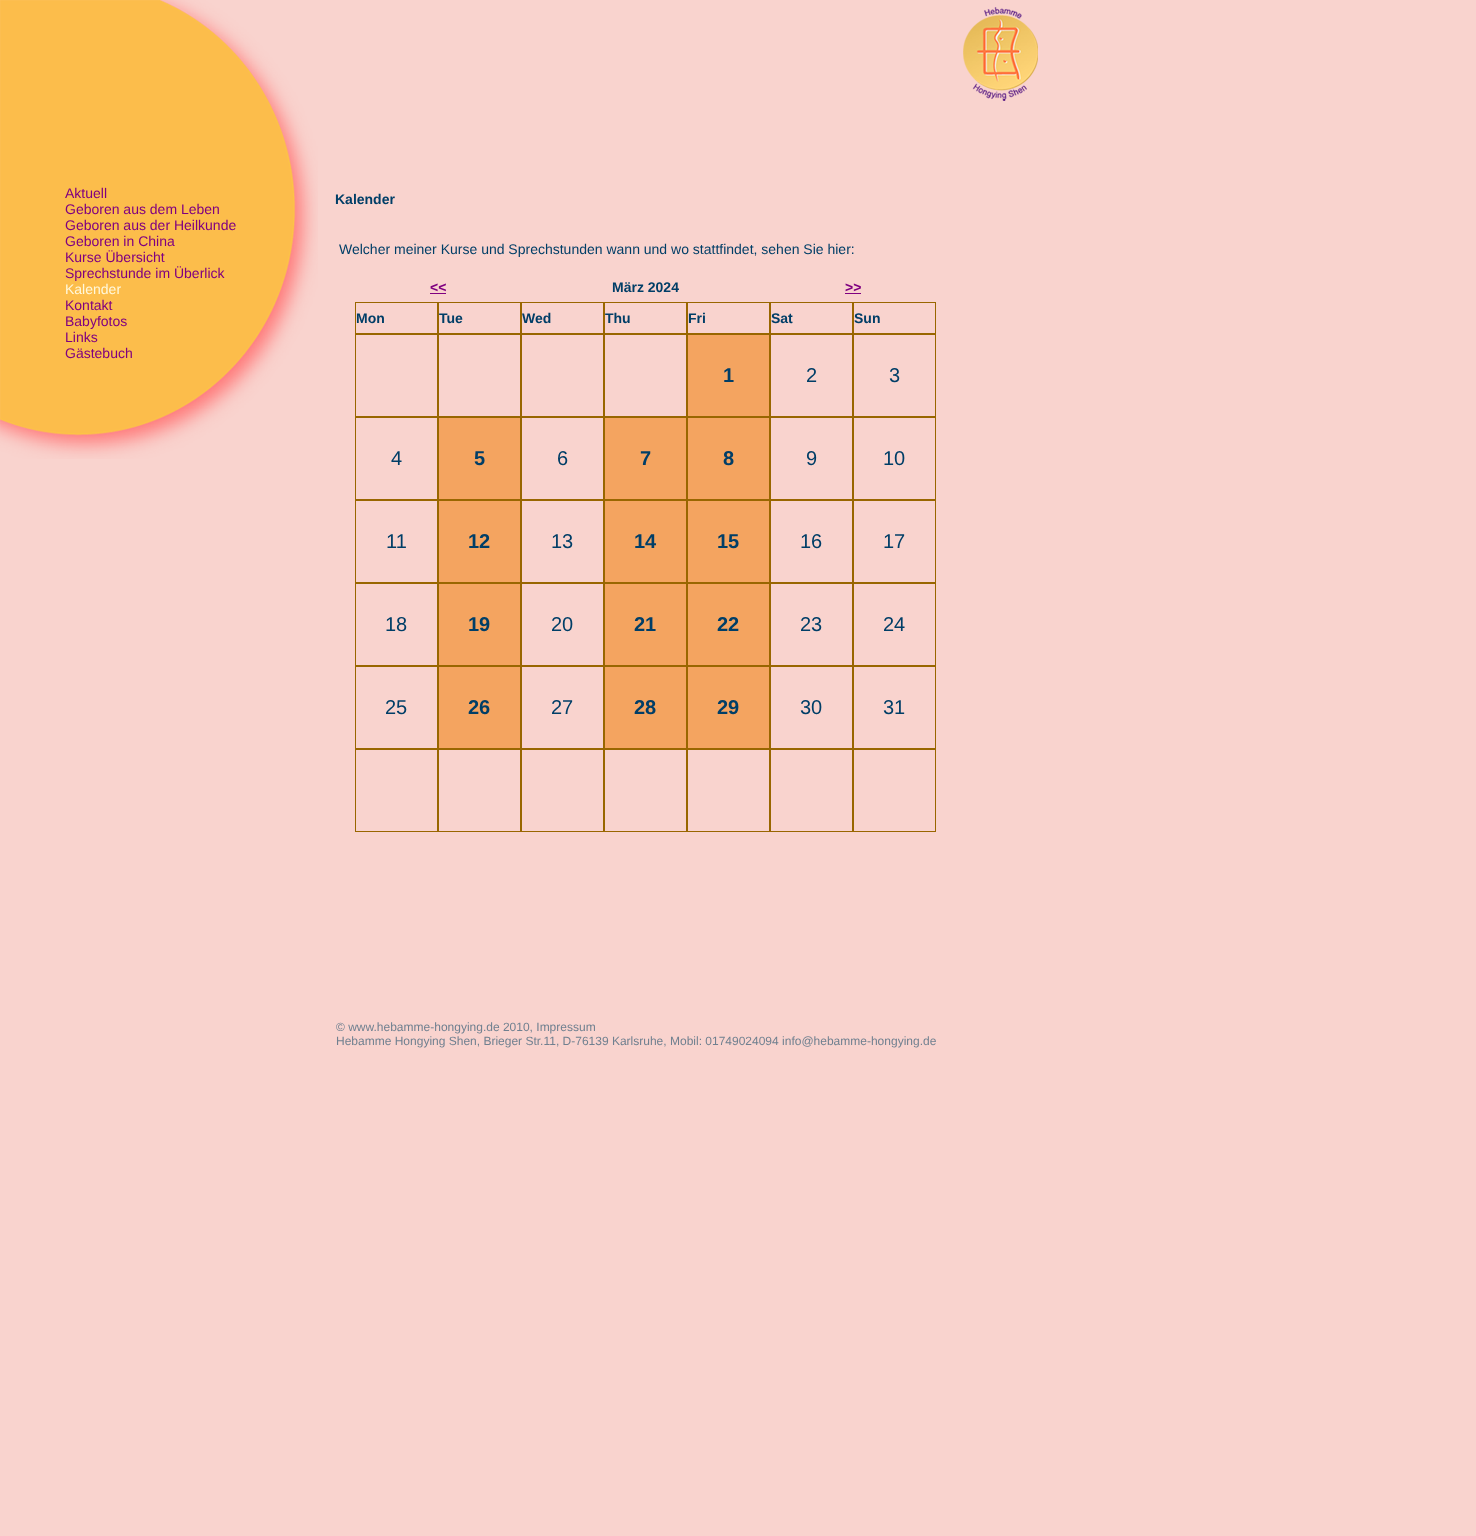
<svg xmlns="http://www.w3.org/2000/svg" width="1476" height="1536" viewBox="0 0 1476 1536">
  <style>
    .t1 { font: 14px Liberation Sans; fill: #800080; }
    .t2 { font: 14px Liberation Sans; fill: #fff8dc; }
    .t3 { font: bold 14px Liberation Sans; fill: #003e67; }
    .t4 { font: 14px Liberation Sans; fill: #003e67; }
    .t5 { font: bold 14px Liberation Sans; fill: #800080; }
    .t6 { font: bold 20px Liberation Sans; fill: #003e67; }
    .t7 { font: 20px Liberation Sans; fill: #003e67; }
    .t8 { font: 12px Liberation Sans; fill: #708090; }
  </style>
  <rect width="100%" height="100%" fill="#f9d3ce"/>
  <image x="0" y="0" width="318" height="459" href="images/1.png"/>
  <text x="65" y="198" class="t1">Aktuell</text>
  <text x="65" y="214" class="t1">Geboren aus dem Leben</text>
  <text x="65" y="230" class="t1">Geboren aus der Heilkunde</text>
  <text x="65" y="246" class="t1">Geboren in China</text>
  <text x="65" y="262" class="t1">Kurse Übersicht</text>
  <text x="65" y="278" class="t1">Sprechstunde im Überlick</text>
  <text x="65" y="294" class="t2">Kalender</text>
  <text x="65" y="310" class="t1">Kontakt</text>
  <text x="65" y="326" class="t1">Babyfotos</text>
  <text x="65" y="342" class="t1">Links</text>
  <text x="65" y="358" class="t1">Gästebuch</text>
  <image x="963" y="7" width="75" height="94" href="images/2.png"/>
  <text x="335" y="204" class="t3">Kalender</text>
  <text x="339" y="254" class="t4">Welcher meiner Kurse und Sprechstunden wann und wo stattfindet, sehen Sie hier:</text>
  <text x="430" y="292" class="t5">&lt;&lt;</text>
  <rect x="430" y="293" width="16" height="1" fill="#800080"/>
  <text x="612" y="292" class="t3">März 2024</text>
  <text x="845" y="292" class="t5">&gt;&gt;</text>
  <rect x="845" y="293" width="16" height="1" fill="#800080"/>
  <rect x="355.5" y="302.5" width="82" height="31" fill="none" stroke="#960"/>
  <text x="356" y="323" class="t3">Mon</text>
  <rect x="438.5" y="302.5" width="82" height="31" fill="none" stroke="#960"/>
  <text x="439" y="323" class="t3">Tue</text>
  <rect x="521.5" y="302.5" width="82" height="31" fill="none" stroke="#960"/>
  <text x="522" y="323" class="t3">Wed</text>
  <rect x="604.5" y="302.5" width="82" height="31" fill="none" stroke="#960"/>
  <text x="605" y="323" class="t3">Thu</text>
  <rect x="687.5" y="302.5" width="82" height="31" fill="none" stroke="#960"/>
  <text x="688" y="323" class="t3">Fri</text>
  <rect x="770.5" y="302.5" width="82" height="31" fill="none" stroke="#960"/>
  <text x="771" y="323" class="t3">Sat</text>
  <rect x="853.5" y="302.5" width="82" height="31" fill="none" stroke="#960"/>
  <text x="854" y="323" class="t3">Sun</text>
  <rect x="355.5" y="334.5" width="82" height="82" fill="none" stroke="#960"/>
  <rect x="438.5" y="334.5" width="82" height="82" fill="none" stroke="#960"/>
  <rect x="521.5" y="334.5" width="82" height="82" fill="none" stroke="#960"/>
  <rect x="604.5" y="334.5" width="82" height="82" fill="none" stroke="#960"/>
  <rect x="687.5" y="334.5" width="82" height="82" fill="#f4a460" stroke="#960"/>
  <text x="723" y="382" class="t6">1</text>
  <rect x="770.5" y="334.5" width="82" height="82" fill="none" stroke="#960"/>
  <text x="806" y="382" class="t7">2</text>
  <rect x="853.5" y="334.5" width="82" height="82" fill="none" stroke="#960"/>
  <text x="889" y="382" class="t7">3</text>
  <rect x="355.5" y="417.5" width="82" height="82" fill="none" stroke="#960"/>
  <text x="391" y="465" class="t7">4</text>
  <rect x="438.5" y="417.5" width="82" height="82" fill="#f4a460" stroke="#960"/>
  <text x="474" y="465" class="t6">5</text>
  <rect x="521.5" y="417.5" width="82" height="82" fill="none" stroke="#960"/>
  <text x="557" y="465" class="t7">6</text>
  <rect x="604.5" y="417.5" width="82" height="82" fill="#f4a460" stroke="#960"/>
  <text x="640" y="465" class="t6">7</text>
  <rect x="687.5" y="417.5" width="82" height="82" fill="#f4a460" stroke="#960"/>
  <text x="723" y="465" class="t6">8</text>
  <rect x="770.5" y="417.5" width="82" height="82" fill="none" stroke="#960"/>
  <text x="806" y="465" class="t7">9</text>
  <rect x="853.5" y="417.5" width="82" height="82" fill="none" stroke="#960"/>
  <text x="883" y="465" class="t7">10</text>
  <rect x="355.5" y="500.5" width="82" height="82" fill="none" stroke="#960"/>
  <text x="386" y="548" class="t7">11</text>
  <rect x="438.5" y="500.5" width="82" height="82" fill="#f4a460" stroke="#960"/>
  <text x="468" y="548" class="t6">12</text>
  <rect x="521.5" y="500.5" width="82" height="82" fill="none" stroke="#960"/>
  <text x="551" y="548" class="t7">13</text>
  <rect x="604.5" y="500.5" width="82" height="82" fill="#f4a460" stroke="#960"/>
  <text x="634" y="548" class="t6">14</text>
  <rect x="687.5" y="500.5" width="82" height="82" fill="#f4a460" stroke="#960"/>
  <text x="717" y="548" class="t6">15</text>
  <rect x="770.5" y="500.5" width="82" height="82" fill="none" stroke="#960"/>
  <text x="800" y="548" class="t7">16</text>
  <rect x="853.5" y="500.5" width="82" height="82" fill="none" stroke="#960"/>
  <text x="883" y="548" class="t7">17</text>
  <rect x="355.5" y="583.5" width="82" height="82" fill="none" stroke="#960"/>
  <text x="385" y="631" class="t7">18</text>
  <rect x="438.5" y="583.5" width="82" height="82" fill="#f4a460" stroke="#960"/>
  <text x="468" y="631" class="t6">19</text>
  <rect x="521.5" y="583.5" width="82" height="82" fill="none" stroke="#960"/>
  <text x="551" y="631" class="t7">20</text>
  <rect x="604.5" y="583.5" width="82" height="82" fill="#f4a460" stroke="#960"/>
  <text x="634" y="631" class="t6">21</text>
  <rect x="687.5" y="583.5" width="82" height="82" fill="#f4a460" stroke="#960"/>
  <text x="717" y="631" class="t6">22</text>
  <rect x="770.5" y="583.5" width="82" height="82" fill="none" stroke="#960"/>
  <text x="800" y="631" class="t7">23</text>
  <rect x="853.5" y="583.5" width="82" height="82" fill="none" stroke="#960"/>
  <text x="883" y="631" class="t7">24</text>
  <rect x="355.5" y="666.5" width="82" height="82" fill="none" stroke="#960"/>
  <text x="385" y="714" class="t7">25</text>
  <rect x="438.5" y="666.5" width="82" height="82" fill="#f4a460" stroke="#960"/>
  <text x="468" y="714" class="t6">26</text>
  <rect x="521.5" y="666.5" width="82" height="82" fill="none" stroke="#960"/>
  <text x="551" y="714" class="t7">27</text>
  <rect x="604.5" y="666.5" width="82" height="82" fill="#f4a460" stroke="#960"/>
  <text x="634" y="714" class="t6">28</text>
  <rect x="687.5" y="666.5" width="82" height="82" fill="#f4a460" stroke="#960"/>
  <text x="717" y="714" class="t6">29</text>
  <rect x="770.5" y="666.5" width="82" height="82" fill="none" stroke="#960"/>
  <text x="800" y="714" class="t7">30</text>
  <rect x="853.5" y="666.5" width="82" height="82" fill="none" stroke="#960"/>
  <text x="883" y="714" class="t7">31</text>
  <rect x="355.5" y="749.5" width="82" height="82" fill="none" stroke="#960"/>
  <rect x="438.5" y="749.5" width="82" height="82" fill="none" stroke="#960"/>
  <rect x="521.5" y="749.5" width="82" height="82" fill="none" stroke="#960"/>
  <rect x="604.5" y="749.5" width="82" height="82" fill="none" stroke="#960"/>
  <rect x="687.5" y="749.5" width="82" height="82" fill="none" stroke="#960"/>
  <rect x="770.5" y="749.5" width="82" height="82" fill="none" stroke="#960"/>
  <rect x="853.5" y="749.5" width="82" height="82" fill="none" stroke="#960"/>
  <text x="336" y="1031" class="t8">© www.hebamme-hongying.de 2010, Impressum</text>
  <text x="336" y="1045" class="t8">Hebamme Hongying Shen, Brieger Str.11, D-76139 Karlsruhe, Mobil: 01749024094 info@hebamme-hongying.de</text>
</svg>
